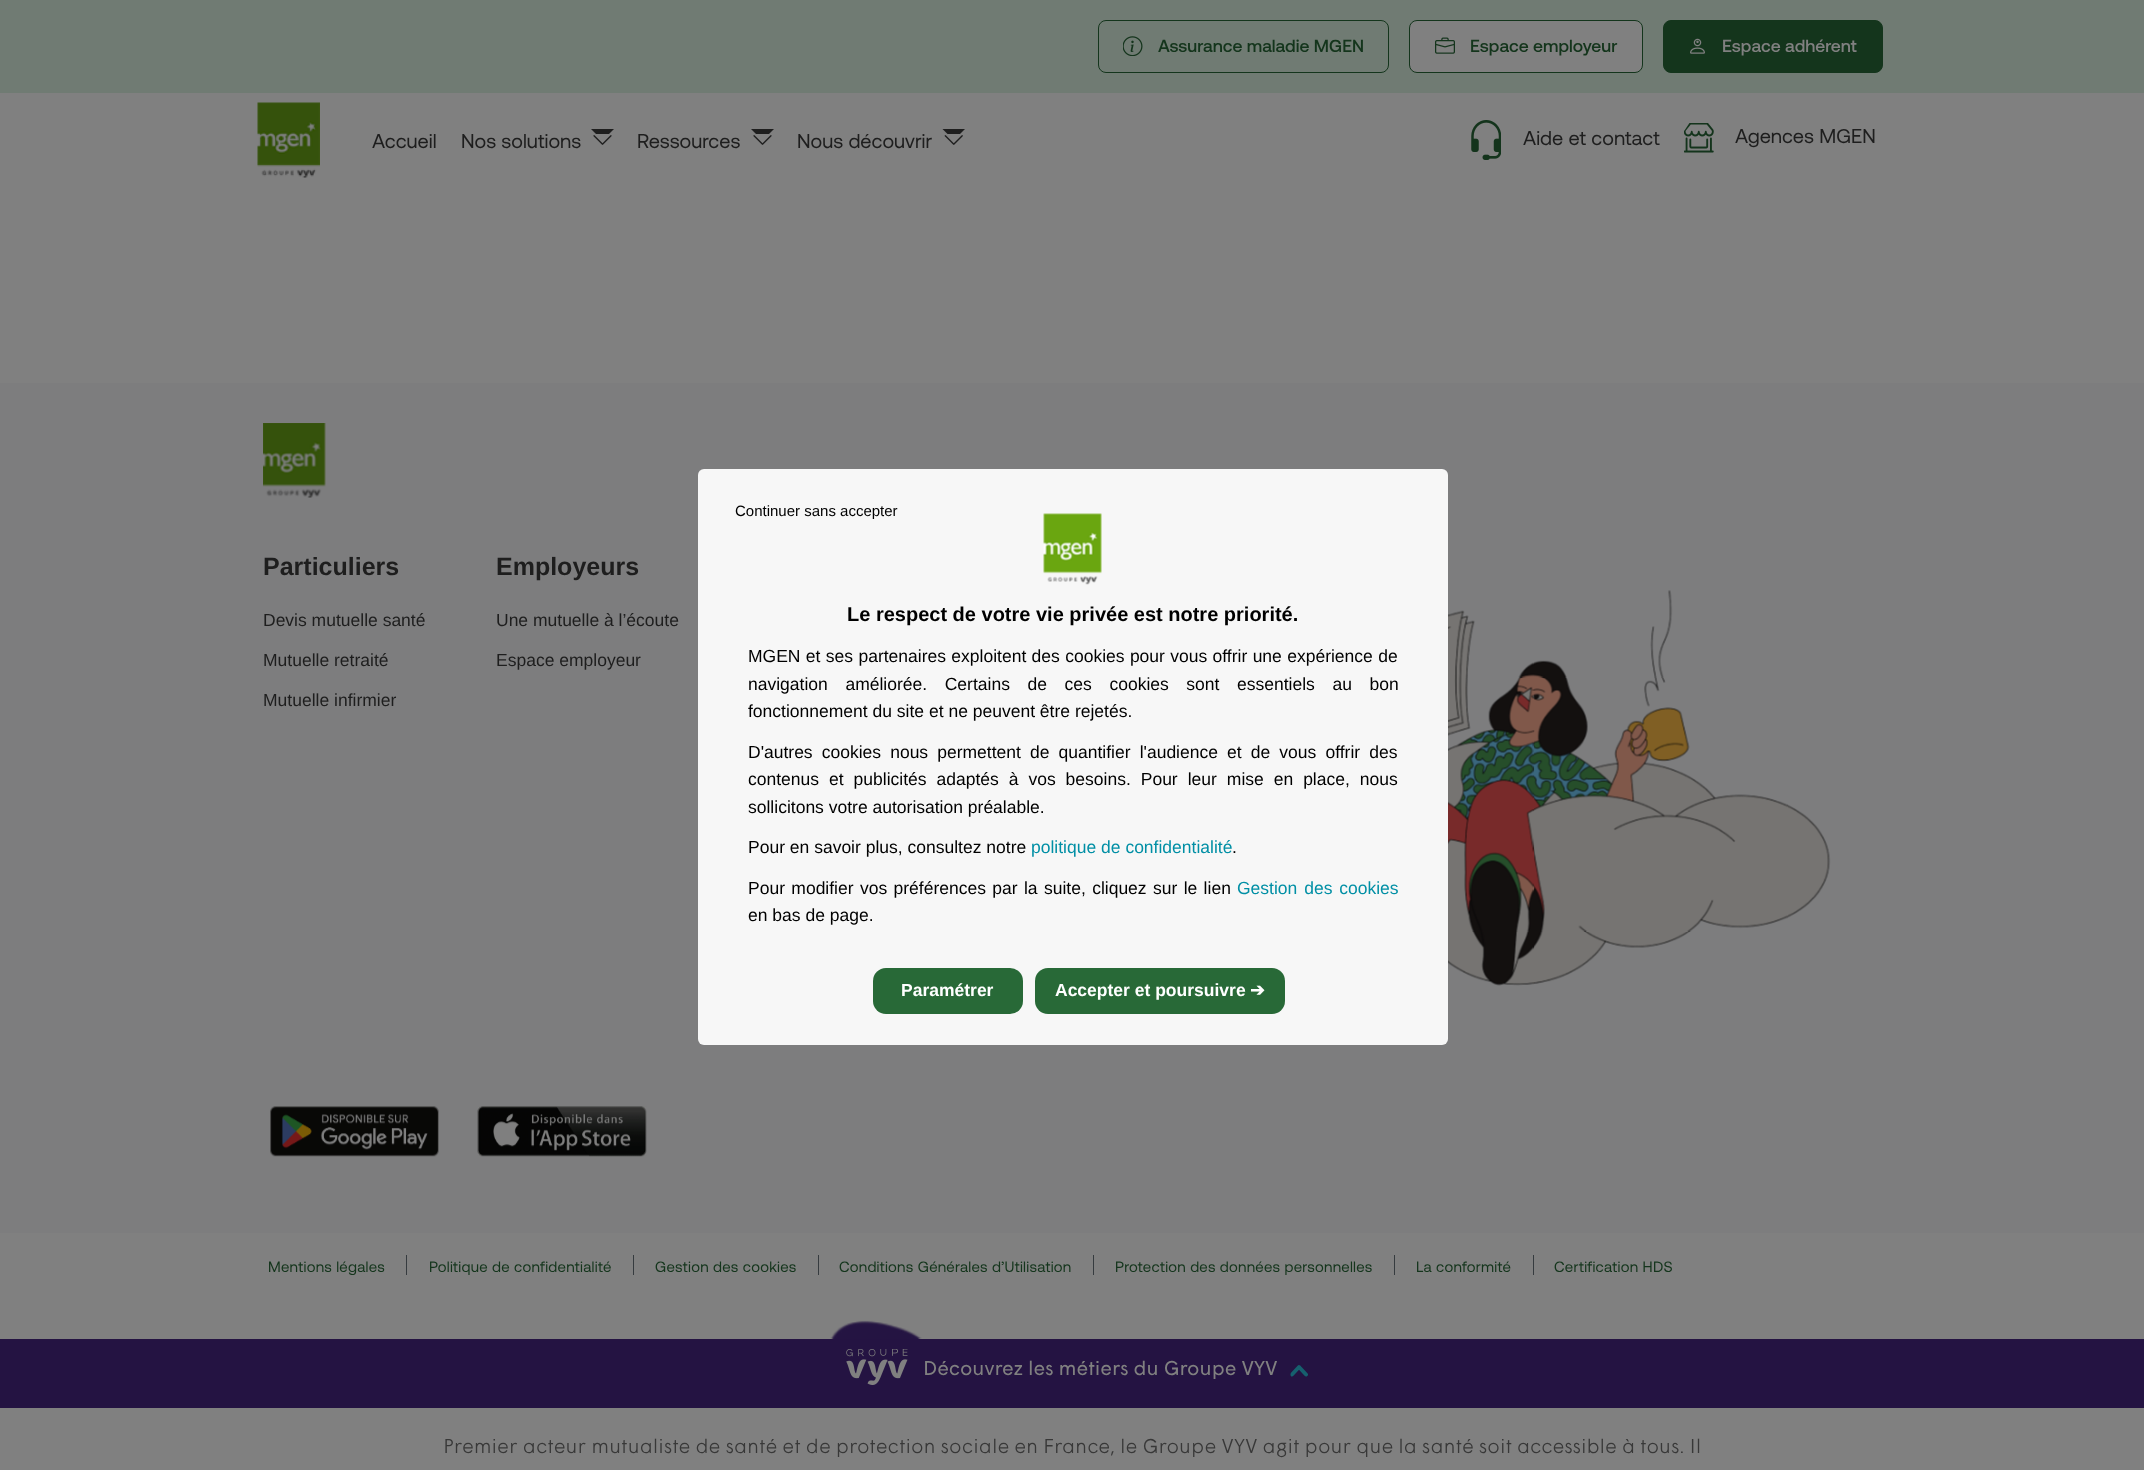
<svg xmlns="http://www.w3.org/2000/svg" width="2144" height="1470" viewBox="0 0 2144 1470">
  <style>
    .t1 { font: 500 17.5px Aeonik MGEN; fill: #14351c; }
    .t2 { font: 500 17.5px Aeonik MGEN; fill: #808080; }
    .t3 { font: 20px Aeonik MGEN; fill: #1e1e1e; }
    .t4 { font: bold 25px Liberation Sans; fill: #1e1e1e; }
    .t5 { font: 17.5px Liberation Sans; fill: #1e1e1e; }
    .t6 { font: 15px Aeonik MGEN; letter-spacing: 0.25px; fill: #14351c; }
    .t7 { font: 15px Liberation Sans; fill: #000; }
    .t8 { font: bold 17.5px Liberation Sans; fill: #fff; }
    .t9 { font: bold 17.5px DejaVu Sans; fill: #fff; }
    .t10 { font: bold 20px Liberation Sans; fill: #000; }
    .t11 { font: 17.5px Liberation Sans; fill: #000; }
    .t12 { font: 17.5px Liberation Sans; fill: #008fa5; }
    .t13 { font: 20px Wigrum; fill: #808080; }
    .t14 { font: 300 20px Wigrum; fill: #383838; }
  </style>
  <defs>
    <clipPath id="clip1"><path d="M1290.5 1379V1361.5H1308V1379Z"/></clipPath>
  </defs>
  <rect width="100%" height="100%" fill="#808080"/>
  <rect x="0" y="0" width="2144" height="93" fill="#707b73"/>
  <rect x="1098.5" y="20.5" width="290" height="52" rx="7.5" fill="none" stroke="#14351c"/>
  <image x="1123" y="36" width="20" height="20" href="images/1.png"/>
  <text x="1158" y="52" class="t1">Assurance maladie MGEN</text>
  <rect x="1409.5" y="20.5" width="233" height="52" rx="7.5" fill="#808080" stroke="#14351c"/>
  <image x="1435" y="37" width="20" height="17" href="images/2.png"/>
  <text x="1470" y="52" class="t1">Espace employeur</text>
  <rect x="1663.5" y="20.5" width="219" height="52" rx="7.5" fill="#14351c" stroke="#14351c"/>
  <image x="1690" y="38" width="15" height="16" href="images/3.png"/>
  <text x="1722" y="52" class="t2">Espace adhérent</text>
  <image x="257" y="102" width="63" height="76" href="images/4.png"/>
  <text x="372" y="148" class="t3">Accueil</text>
  <text x="461" y="148" class="t3">Nos solutions</text>
  <image x="593" y="135" width="19" height="10" href="images/5.png"/>
  <path d="M591 129H614L609 134H596Z" fill="#1e1e1e"/>
  <text x="637" y="148" class="t3">Ressources</text>
  <image x="753" y="135" width="19" height="10" href="images/5.png"/>
  <path d="M751 129H774L769 134H756Z" fill="#1e1e1e"/>
  <text x="797" y="148" class="t3">Nous découvrir</text>
  <image x="944" y="135" width="19" height="10" href="images/6.png"/>
  <path d="M942.5 129H965L960 134H947.5Z" fill="#1e1e1e"/>
  <image x="1471" y="120" width="30" height="40" href="images/7.png"/>
  <text x="1523" y="145" class="t3">Aide et contact</text>
  <image x="1684" y="123" width="30" height="30" href="images/8.png"/>
  <text x="1735" y="143" class="t3">Agences MGEN</text>
  <rect x="0" y="383" width="2144" height="850" fill="#7d7d7e"/>
  <image x="263" y="423" width="63" height="75" href="images/9.png"/>
  <text x="263" y="575" class="t4">Particuliers</text>
  <text x="263" y="626" class="t5">Devis mutuelle santé</text>
  <text x="263" y="666" class="t5">Mutuelle retraité</text>
  <text x="263" y="706" class="t5">Mutuelle infirmier</text>
  <text x="496" y="575" class="t4">Employeurs</text>
  <text x="496" y="626" class="t5">Une mutuelle à l’écoute</text>
  <text x="496" y="666" class="t5">Espace employeur</text>
  <image x="1448" y="590" width="383" height="396" href="images/10.png"/>
  <image x="270" y="1106" width="169" height="51" href="images/11.png"/>
  <image x="477" y="1106" width="170" height="51" href="images/12.png"/>
  <text x="268" y="1272" class="t6">Mentions légales</text>
  <rect x="406" y="1255" width="1" height="20" fill="#363b3f"/>
  <text x="429" y="1272" class="t6">Politique de confidentialité</text>
  <rect x="633" y="1255" width="1" height="20" fill="#363b3f"/>
  <text x="655" y="1272" class="t6">Gestion des cookies</text>
  <rect x="818" y="1255" width="1" height="20" fill="#363b3f"/>
  <text x="839" y="1272" class="t6">Conditions Générales d’Utilisation</text>
  <rect x="1093" y="1255" width="1" height="20" fill="#363b3f"/>
  <text x="1115" y="1272" class="t6">Protection des données personnelles</text>
  <rect x="1394" y="1255" width="1" height="20" fill="#363b3f"/>
  <text x="1416" y="1272" class="t6">La conformité</text>
  <rect x="1533" y="1255" width="1" height="20" fill="#363b3f"/>
  <text x="1554" y="1272" class="t6">Certification HDS</text>
  <rect x="698" y="469" width="750" height="576" rx="6" fill="#f7f7f7"/>
  <text x="735" y="516" class="t7">Continuer sans accepter</text>
  <rect x="873" y="968" width="150" height="46" rx="13" fill="#286937"/>
  <text x="901" y="996" class="t8">Paramétrer</text>
  <rect x="1035" y="968" width="250" height="46" rx="13" fill="#286937"/>
  <text x="1055" y="996" class="t8">Accepter et poursuivre</text>
  <text x="1250" y="996" class="t9">➔</text>
  <image x="1043" y="513" width="59" height="72" href="images/13.png"/>
  <text x="847" y="621" class="t10">Le respect de votre vie privée est notre priorité.</text>
  <text x="748" y="662" word-spacing="0.5" class="t11">MGEN et ses partenaires exploitent des cookies pour vous offrir une expérience de</text>
  <text x="748" y="690" word-spacing="12.75" class="t11">navigation améliorée. Certains de ces cookies sont essentiels au bon</text>
  <text x="748" y="717" class="t11">fonctionnement du site et ne peuvent être rejetés.</text>
  <text x="748" y="758" word-spacing="4.25" class="t11">D'autres cookies nous permettent de quantifier l'audience et de vous offrir des</text>
  <text x="748" y="785" word-spacing="5.1" class="t11">contenus et publicités adaptés à vos besoins. Pour leur mise en place, nous</text>
  <text x="748" y="813" class="t11">sollicitons votre autorisation préalable.</text>
  <text x="748" y="853" class="t11">Pour en savoir plus, consultez notre</text>
  <text x="1031" y="853" class="t12">politique de confidentialité</text>
  <text x="1232" y="853" class="t11">.</text>
  <text x="748" y="894" word-spacing="1.5" class="t11">Pour modifier vos préférences par la suite, cliquez sur le lien</text>
  <text x="1237" y="894" word-spacing="2" class="t12">Gestion des cookies</text>
  <text x="748" y="921" class="t11">en bas de page.</text>
  <rect x="0" y="1339" width="2144" height="69" fill="#241342"/>
  <image x="830" y="1320" width="92" height="19" href="images/14.png"/>
  <image x="846" y="1349" width="62" height="36" href="images/15.png"/>
  <text x="923" y="1375" class="t13">Découvrez les métiers du Groupe VYV</text>
  <g clip-path="url(#clip1)">
    <path d="M1292 1374.5L1299 1367L1306 1374.5" fill="none" stroke="#16606e" stroke-width="3.9" stroke-linecap="round" stroke-linejoin="round"/>
  </g>
  <text x="443" y="1453" class="t14">Premier acteur mutualiste de santé et de protection sociale en France, le Groupe VYV agit pour que la santé soit accessible à tous. Il</text>
</svg>
